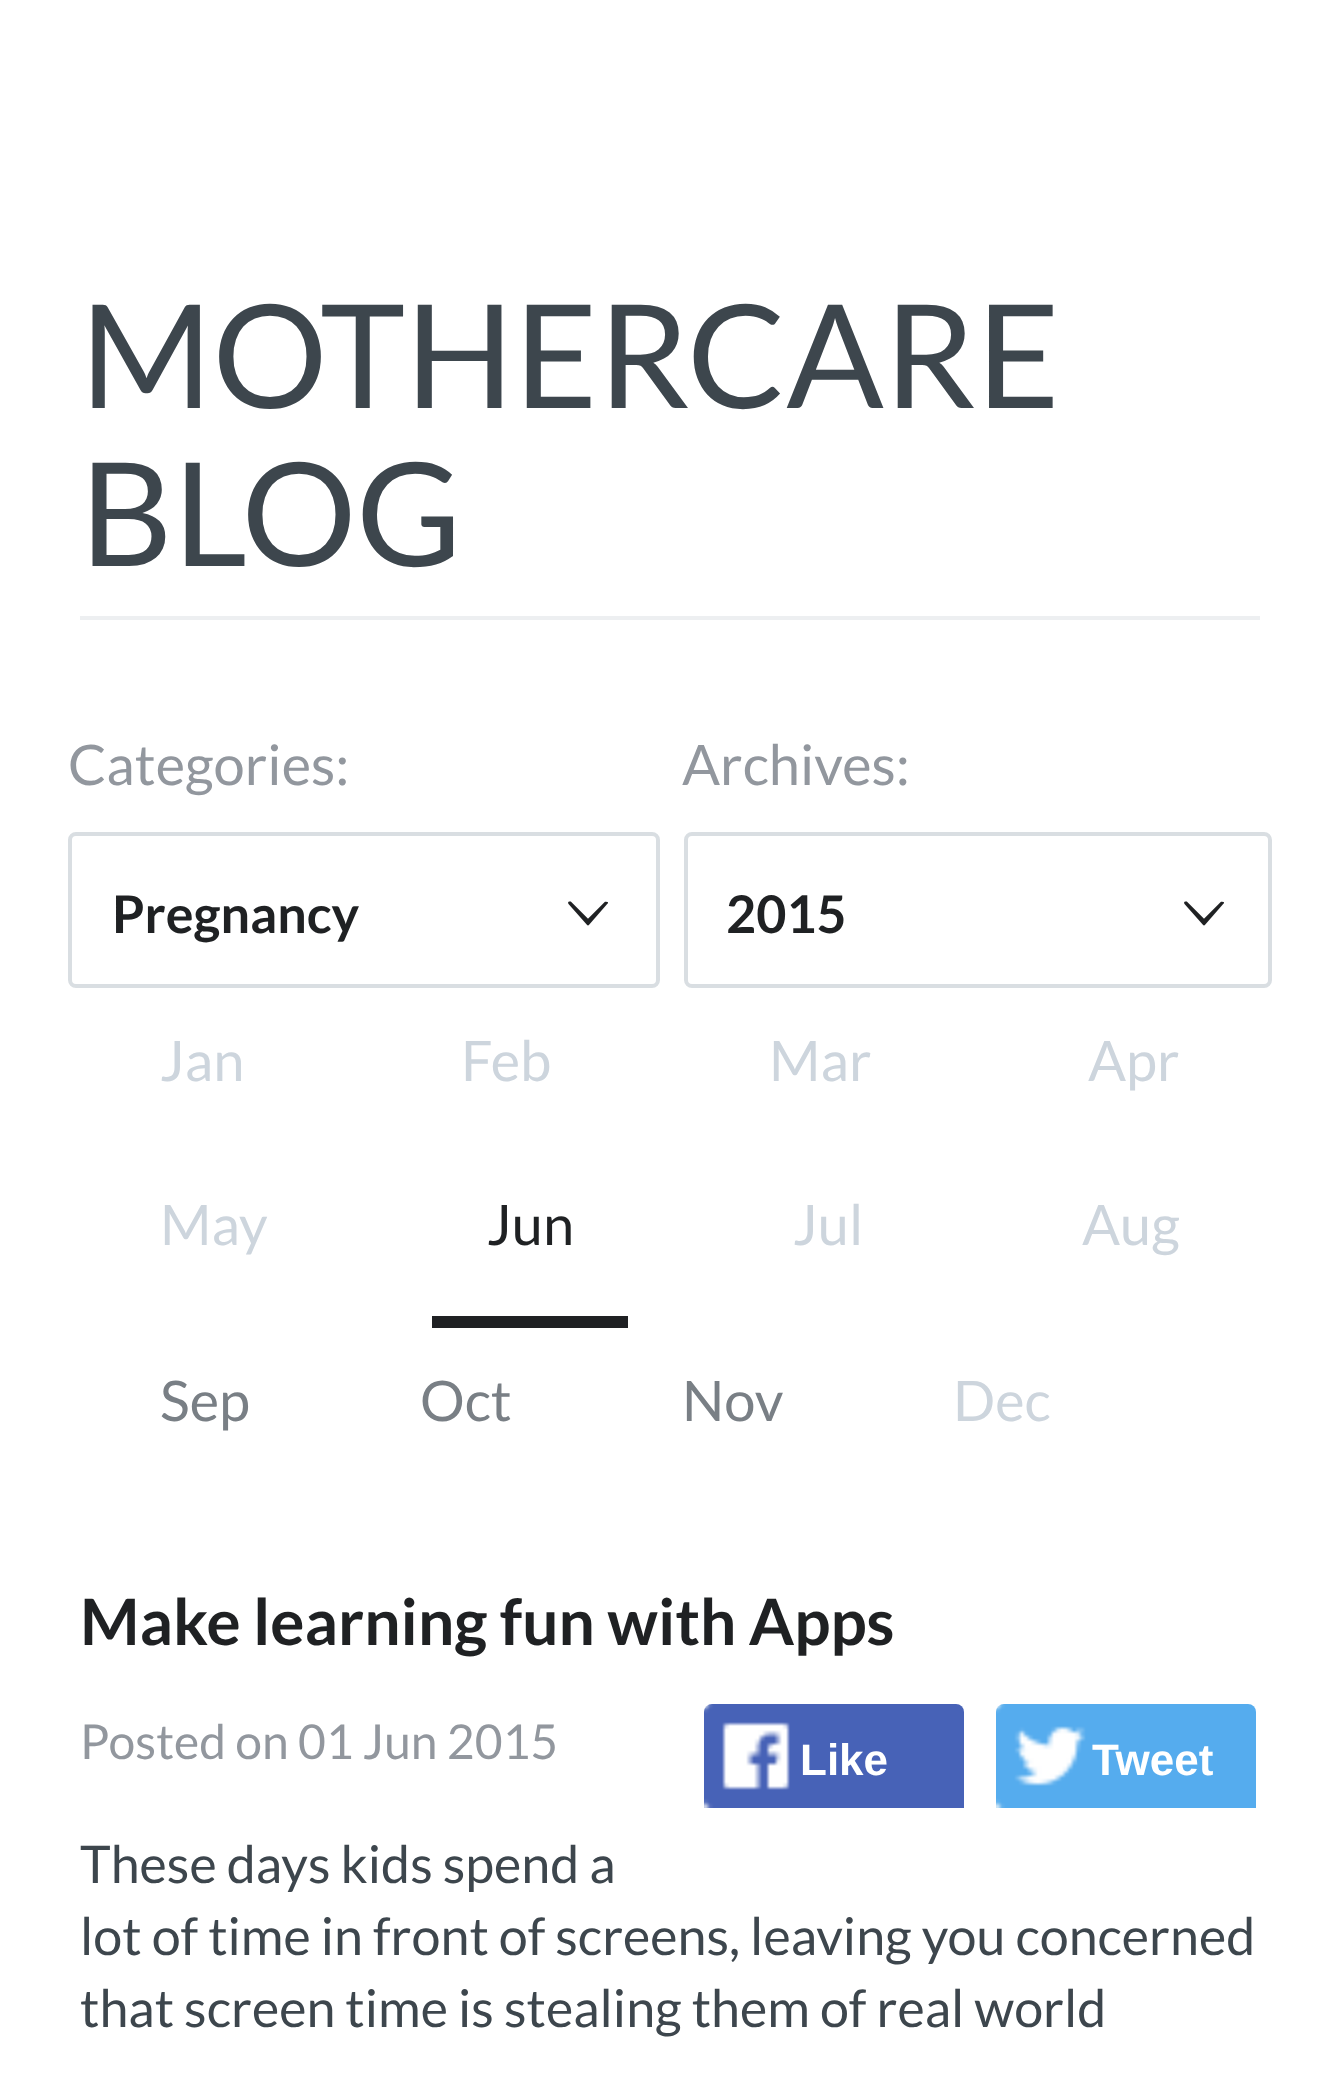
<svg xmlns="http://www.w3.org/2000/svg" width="1339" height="2083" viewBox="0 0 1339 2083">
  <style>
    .t1 { font: 144px Lato; fill: #3d464d; }
    .t2 { font: 56px Lato; fill: #92979e; }
    .t3 { font: bold 52px Lato; fill: #1f2123; }
    .t4 { font: 56px Lato; fill: #cdd5dd; }
    .t5 { font: 56px Lato; fill: #1f2123; }
    .t6 { font: 56px Lato; fill: #797f85; }
    .t7 { font: bold 64px Lato; fill: #1f2123; }
    .t8 { font: 48px Lato; fill: #92979e; }
    .t9 { font: bold 44px Liberation Sans; fill: #fff; }
    .t10 { font: 52px Lato; fill: #3d464d; }
  </style>
  <rect width="100%" height="100%" fill="#fff"/>
  <rect x="80" y="616" width="1180" height="4" fill="#edeff1"/>
  <text x="80" y="408" class="t1">MOTHERCARE</text>
  <text x="80" y="566" class="t1">BLOG</text>
  <text x="68" y="785" class="t2">Categories:</text>
  <rect x="70" y="834" width="588" height="152" rx="6" fill="none" stroke="#d9dee2" stroke-width="4"/>
  <text x="112" y="933" class="t3">Pregnancy</text>
  <image x="568" y="901" width="40" height="25" href="images/1.png"/>
  <text x="682" y="785" class="t2">Archives:</text>
  <rect x="686" y="834" width="584" height="152" rx="6" fill="none" stroke="#d9dee2" stroke-width="4"/>
  <text x="726" y="933" class="t3">2015</text>
  <image x="1184" y="901" width="40" height="25" href="images/1.png"/>
  <text x="160" y="1081" class="t4">Jan</text>
  <text x="461" y="1081" class="t4">Feb</text>
  <text x="769" y="1081" class="t4">Mar</text>
  <text x="1088" y="1081" class="t4">Apr</text>
  <text x="160" y="1245" class="t4">May</text>
  <rect x="432" y="1316" width="196" height="12" fill="#1f2123"/>
  <text x="487" y="1245" class="t5">Jun</text>
  <text x="793" y="1245" class="t4">Jul</text>
  <text x="1082" y="1245" class="t4">Aug</text>
  <text x="160" y="1421" class="t6">Sep</text>
  <text x="420" y="1421" class="t6">Oct</text>
  <text x="682" y="1421" class="t6">Nov</text>
  <text x="953" y="1421" class="t4">Dec</text>
  <text x="80" y="1645" class="t7">Make learning fun with Apps</text>
  <text x="80" y="1759" class="t8">Posted on 01 Jun 2015</text>
  <image x="704" y="1704" width="260" height="104" href="images/2.png"/>
  <text x="800" y="1775" class="t9">Like</text>
  <image x="996" y="1704" width="260" height="104" href="images/3.png"/>
  <text x="1092" y="1775" class="t9">Tweet</text>
  <text x="80" y="1883" class="t10">These days kids spend a</text>
  <text x="80" y="1955" class="t10">lot of time in front of screens, leaving you concerned</text>
  <text x="80" y="2027" class="t10">that screen time is stealing them of real world</text>
</svg>
